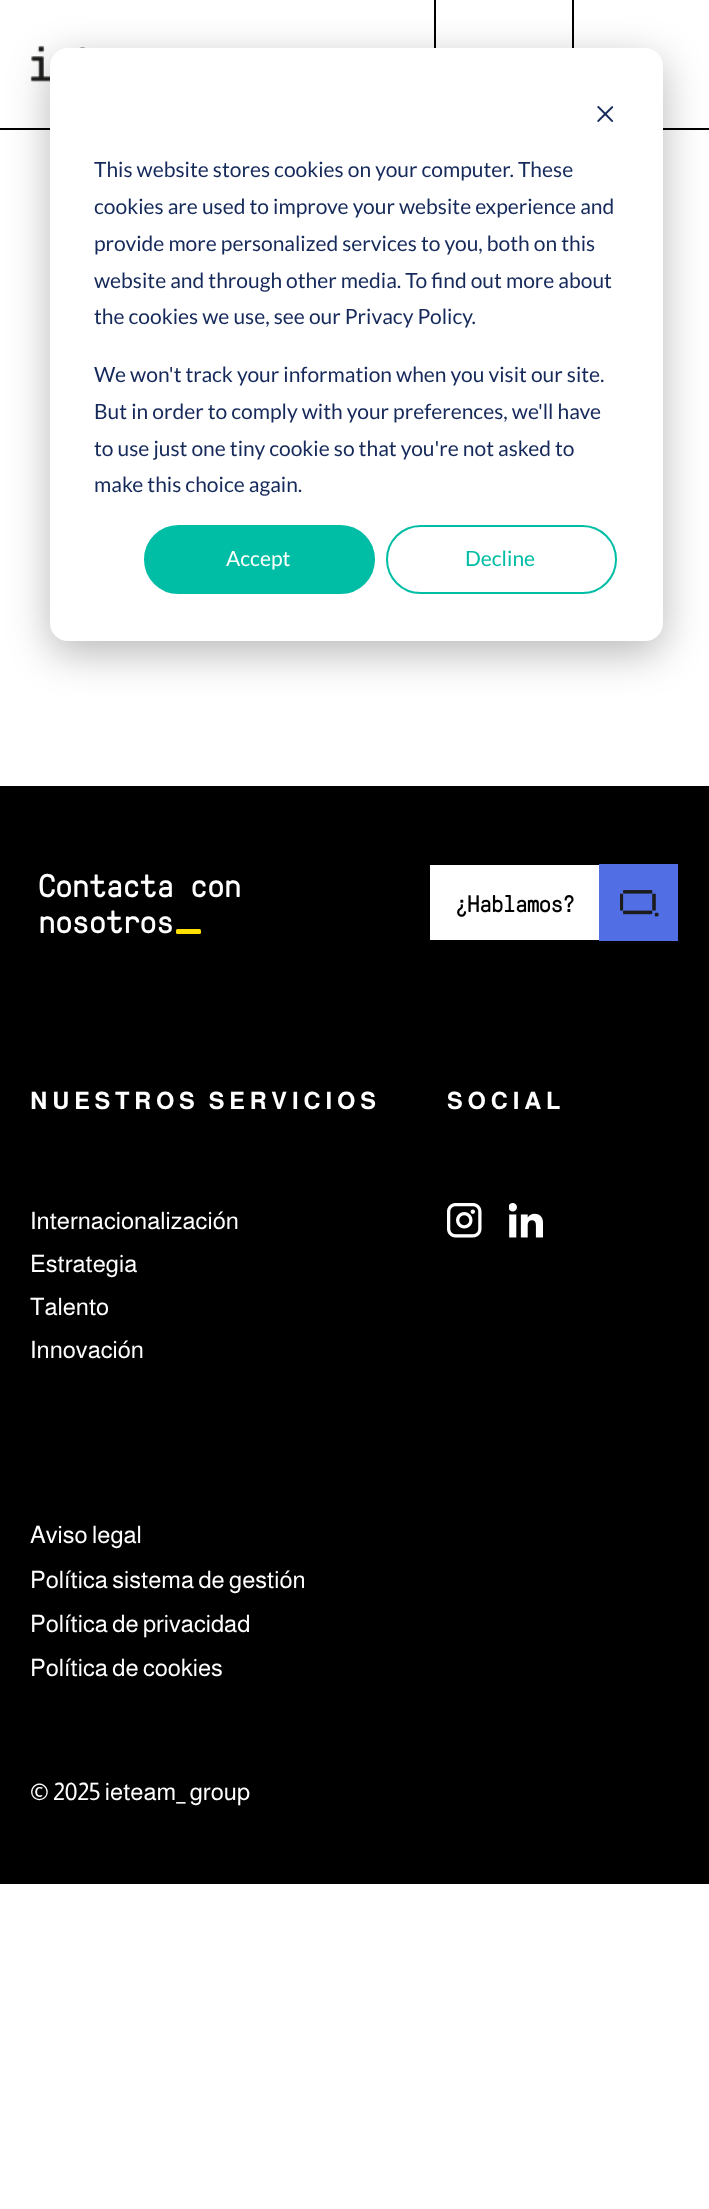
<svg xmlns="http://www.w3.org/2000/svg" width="709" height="2209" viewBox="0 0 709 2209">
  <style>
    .t1 { font: 21px Lato; fill: #15295a; }
    .t2 { font: 21px Lato; fill: #fff; }
    .t3 { font: 21px Lato; fill: #00bda5; }
    .t4 { font: 33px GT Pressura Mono; letter-spacing: -1.25px; fill: #fff; }
    .t5 { font: 24px GT Pressura Mono; letter-spacing: -1.25px; fill: #000; }
    .t6 { font: bold 24px Almarai; letter-spacing: 4.75px; fill: #fff; }
    .t7 { font: 24px Almarai; fill: #fff; }
  </style>
  <rect width="100%" height="100%" fill="#fff"/>
  <rect x="0" y="128" width="709" height="2" fill="#000"/>
  <rect x="434" y="0" width="2" height="48" fill="#000"/>
  <rect x="572" y="0" width="2" height="48" fill="#000"/>
  <image x="30" y="45" width="149" height="38" href="images/2.png"/>
  <rect x="50" y="60" width="613" height="593" rx="18" fill="#00000047" filter="blur(21px)"/>
  <rect x="50" y="48" width="613" height="593" rx="18" fill="#fff"/>
  <image x="597" y="106" width="17" height="16" href="images/1.png"/>
  <text x="94" y="177" class="t1">This website stores cookies on your computer. These</text>
  <text x="94" y="214" class="t1">cookies are used to improve your website experience and</text>
  <text x="94" y="251" class="t1">provide more personalized services to you, both on this</text>
  <text x="94" y="288" class="t1">website and through other media. To find out more about</text>
  <text x="94" y="324" class="t1">the cookies we use, see our Privacy Policy.</text>
  <text x="94" y="382" class="t1">We won't track your information when you visit our site.</text>
  <text x="94" y="419" class="t1">But in order to comply with your preferences, we'll have</text>
  <text x="94" y="456" class="t1">to use just one tiny cookie so that you're not asked to</text>
  <text x="94" y="492" class="t1">make this choice again.</text>
  <rect x="145" y="526" width="229" height="67" rx="33.5" fill="#00bda5" stroke="#00bda5" stroke-width="2"/>
  <text x="226" y="566" class="t2">Accept</text>
  <rect x="387" y="526" width="229" height="67" rx="33.5" fill="none" stroke="#00bda5" stroke-width="2"/>
  <text x="465" y="566" class="t3">Decline</text>
  <rect x="0" y="786" width="709" height="1098" fill="#000"/>
  <text x="38" y="897" class="t4">Contacta con</text>
  <text x="38" y="933" class="t4">nosotros</text>
  <rect x="176" y="929" width="25" height="5" rx="1.5" fill="#ffe000"/>
  <rect x="430" y="865" width="169" height="75" fill="#fff"/>
  <text x="455" y="912" class="t5">¿Hablamos?</text>
  <rect x="599" y="864" width="79" height="77" fill="#526ee5"/>
  <image x="620" y="890" width="39" height="27" href="images/3.png"/>
  <text x="30" y="1109" class="t6">NUESTROS SERVICIOS</text>
  <text x="30" y="1229" class="t7">Internacionalización</text>
  <text x="30" y="1272" class="t7">Estrategia</text>
  <text x="30" y="1315" class="t7">Talento</text>
  <text x="30" y="1358" class="t7">Innovación</text>
  <text x="447" y="1109" class="t6">SOCIAL</text>
  <image x="447" y="1203" width="35" height="35" href="images/4.png"/>
  <image x="509" y="1203" width="34" height="35" href="images/5.png"/>
  <text x="30" y="1543" class="t7">Aviso legal</text>
  <text x="30" y="1588" class="t7">Política sistema de gestión</text>
  <text x="30" y="1632" class="t7">Política de privacidad</text>
  <text x="30" y="1676" class="t7">Política de cookies</text>
  <text x="30" y="1800" class="t7">© 2025 ieteam_ group</text>
</svg>
